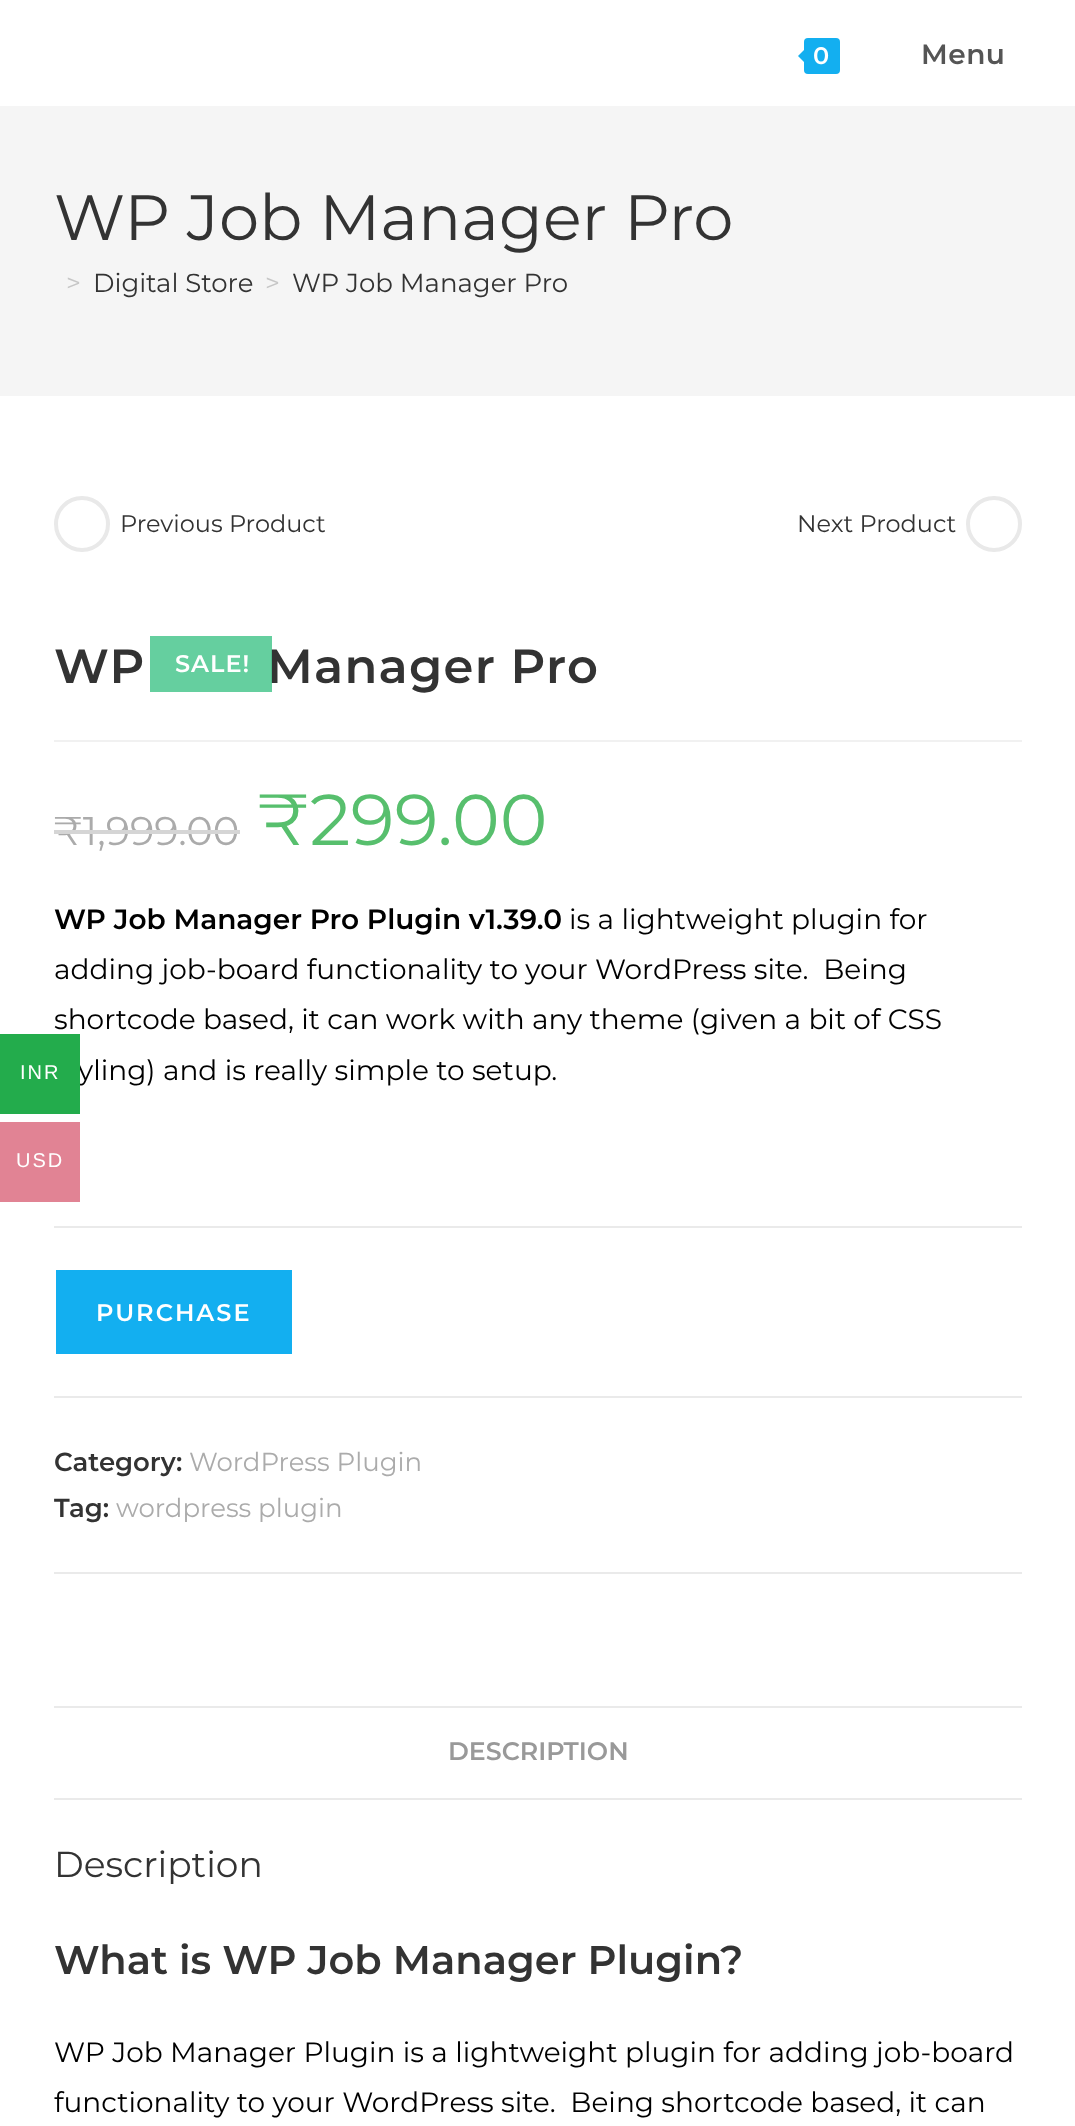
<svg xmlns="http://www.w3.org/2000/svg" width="1075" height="2126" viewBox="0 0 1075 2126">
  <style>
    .t1 { font: 28px Montserrat; fill: #000; }
    .t2 { font: 20px Liberation Sans; letter-spacing: 2px; fill: #fff; }
    .t3 { font: 600 24px Montserrat; letter-spacing: 0.5px; fill: #fff; }
    .t4 { font: 600 28px Montserrat; letter-spacing: 0.5px; fill: #555; }
    .t5 { font: 64px Montserrat; fill: #333; }
    .t6 { font: 26px Montserrat; fill: #c6c6c6; }
    .t7 { font: 26px Montserrat; fill: #333; }
    .t8 { font: 24px Montserrat; fill: #333; }
    .t9 { font: 600 48px Montserrat; letter-spacing: 1.25px; fill: #333; }
    .t10 { font: 40px Montserrat; fill: #ababab; }
    .t11 { font: 72px Montserrat; fill: #57bf6d; }
    .t12 { font: 600 28px Montserrat; fill: #000; }
    .t13 { font: 600 24px Montserrat; letter-spacing: 2px; fill: #fff; }
    .t14 { font: 600 26px Montserrat; fill: #333; }
    .t15 { font: 26px Montserrat; fill: #ababab; }
    .t16 { font: 600 24px Montserrat; letter-spacing: 1px; fill: #fff; }
    .t17 { font: 600 25.25px Montserrat; fill: #999; }
    .t18 { font: 36px Montserrat; fill: #333; }
    .t19 { font: 600 40px Montserrat; fill: #333; }
  </style>
  <rect width="100%" height="100%" fill="#fff"/>
  <text x="54" y="1029" class="t1">shortcode based, it can work with any theme (given a bit of CSS</text>
  <text x="78" y="1080" class="t1">yling) and is really simple to setup.</text>
  <rect x="0" y="1034" width="80" height="80" fill="#23ac4c"/>
  <text x="20" y="1079" class="t2">INR</text>
  <rect x="0" y="1122" width="80" height="80" fill="#e18394"/>
  <text x="16" y="1167" class="t2">USD</text>
  <rect x="804" y="38" width="36" height="36" rx="4" fill="#13aff0"/>
  <path d="M808 46V66L798 56Z" fill="#13aff0"/>
  <text x="813" y="64" class="t3">0</text>
  <text x="921" y="64" class="t4">Menu</text>
  <rect x="0" y="106" width="1075" height="290" fill="#f5f5f5"/>
  <text x="54" y="240" class="t5">WP Job Manager Pro</text>
  <text x="66" y="292" class="t6">&gt;</text>
  <text x="93" y="292" class="t7">Digital Store</text>
  <text x="265" y="292" class="t6">&gt;</text>
  <text x="292" y="292" class="t7">WP Job Manager Pro</text>
  <circle cx="82" cy="524" r="26" fill="none" stroke="#e9e9e9" stroke-width="4"/>
  <text x="120" y="532" class="t8">Previous Product</text>
  <text x="797" y="532" class="t8">Next Product</text>
  <circle cx="994" cy="524" r="26" fill="none" stroke="#e9e9e9" stroke-width="4"/>
  <rect x="54" y="740" width="968" height="2" fill="#f1f1f1"/>
  <text x="54" y="683" class="t9">WP</text>
  <text x="267" y="683" class="t9">Manager Pro</text>
  <text x="54" y="845" class="t10">₹1,999.00</text>
  <rect x="54" y="830" width="186" height="4" fill="#d5d5d5"/>
  <text x="258" y="845" class="t11">₹299.00</text>
  <text x="54" y="929" class="t12">WP Job Manager Pro Plugin v1.39.0</text>
  <text x="569" y="929" class="t1">is a lightweight plugin for</text>
  <text x="54" y="979" class="t1" xml:space="preserve">adding job-board functionality to your WordPress site.  Being</text>
  <rect x="54" y="1226" width="968" height="2" fill="#eaeaea"/>
  <rect x="54" y="1396" width="968" height="2" fill="#eaeaea"/>
  <rect x="56" y="1270" width="236" height="84" fill="#13aff0"/>
  <text x="96" y="1321" class="t13">PURCHASE</text>
  <rect x="54" y="1572" width="968" height="2" fill="#eaeaea"/>
  <text x="54" y="1471" class="t14">Category:</text>
  <text x="189" y="1471" class="t15">WordPress Plugin</text>
  <text x="54" y="1517" class="t14">Tag:</text>
  <text x="116" y="1517" class="t15">wordpress plugin</text>
  <rect x="150" y="636" width="122" height="56" fill="#3fc387cc"/>
  <text x="175" y="672" class="t16">SALE!</text>
  <rect x="54" y="1706" width="968" height="2" fill="#eaeaea"/>
  <rect x="54" y="1798" width="968" height="2" fill="#eaeaea"/>
  <text x="448" y="1760" class="t17">DESCRIPTION</text>
  <text x="54" y="1877" class="t18">Description</text>
  <text x="54" y="1974" class="t19">What is WP Job Manager Plugin?</text>
  <text x="54" y="2062" class="t1">WP Job Manager Plugin is a lightweight plugin for adding job-board</text>
  <text x="54" y="2112" class="t1" xml:space="preserve">functionality to your WordPress site.  Being shortcode based, it can</text>
</svg>
